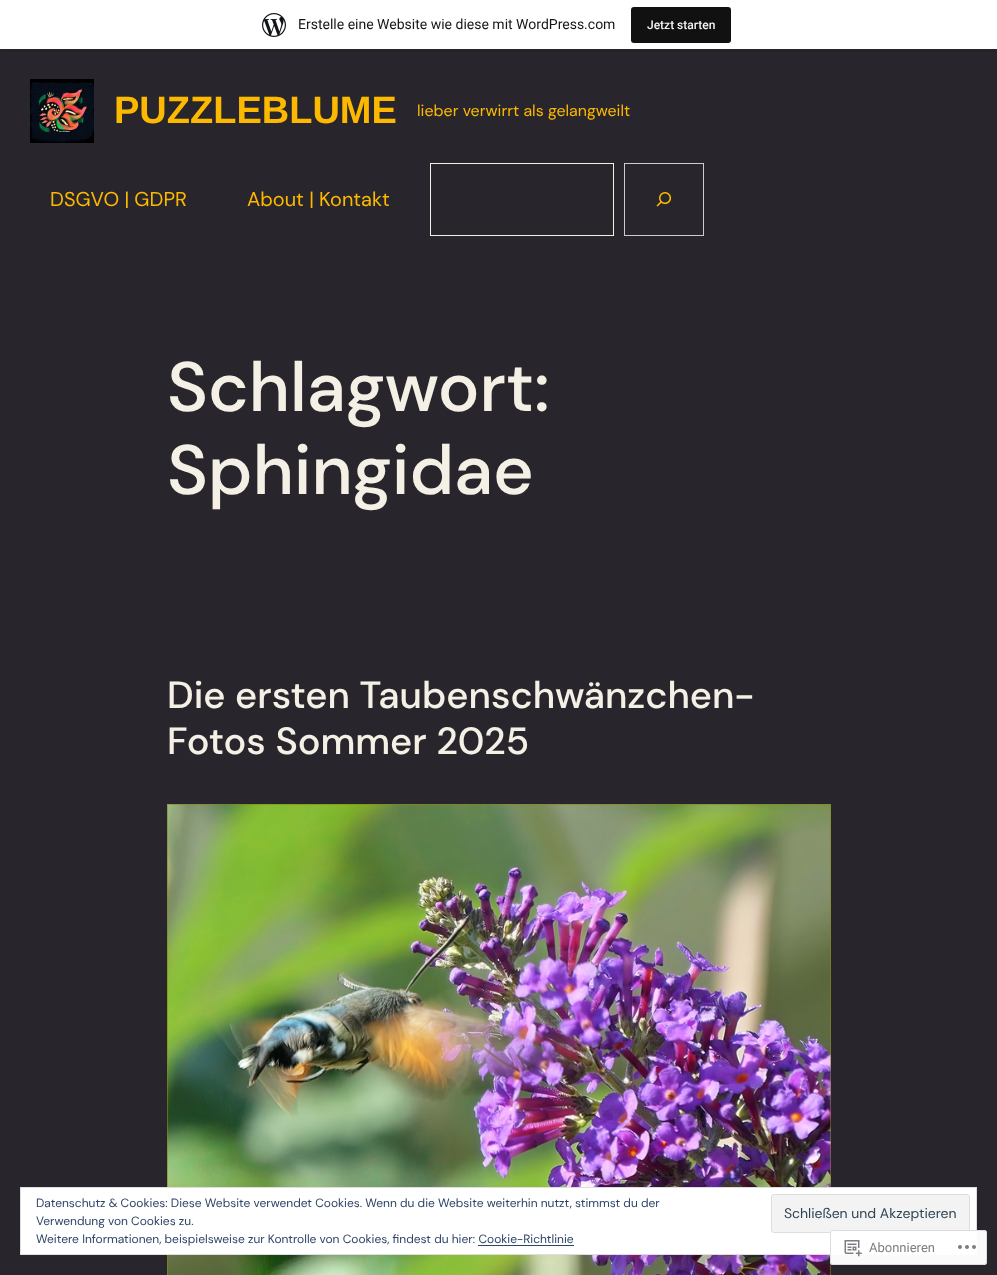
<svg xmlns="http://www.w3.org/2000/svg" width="997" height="1275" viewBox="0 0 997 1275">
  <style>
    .t1 { font: 14px Roboto; fill: #171717; }
    .t2 { font: 500 12px Roboto; fill: #f6f7f7; }
    .t3 { font: bold 38px Liberation Sans; fill: #fcb900; }
    .t4 { font: 16px DM Sans; fill: #fcb900; }
    .t5 { font: 20px DM Sans; fill: #fcb900; }
    .t6 { font: 500 69.75px DM Sans; fill: #f5f0e5; }
    .t7 { font: 500 38px DM Sans; fill: #f5f0e5; }
    .t8 { font: 12px DM Sans; fill: #2e4467; }
    .t9 { font: 14px DM Sans; fill: #2e4453; }
    .t10 { font: 13px Roboto; fill: #7b7f85; }
  </style>
  <rect width="100%" height="100%" fill="#28262c"/>
  <path d="M1 49V52H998V3H997V49Z" fill="#252328"/>
  <rect x="0" y="0" width="997" height="49" fill="#fff"/>
  <image x="262" y="13" width="24" height="24" href="images/1.png"/>
  <text x="298" y="29" class="t1">Erstelle eine Website wie diese mit WordPress.com</text>
  <rect x="631" y="7" width="100" height="36" rx="3" fill="#111"/>
  <text x="647" y="29" class="t2">Jetzt starten</text>
  <image x="30" y="79" width="64" height="64" href="images/2.png"/>
  <text x="114" y="123" class="t3">PUZZLEBLUME</text>
  <text x="417" y="116" class="t4">lieber verwirrt als gelangweilt</text>
  <text x="50" y="206" class="t5">DSGVO | GDPR</text>
  <text x="247" y="206" class="t5">About | Kontakt</text>
  <rect x="430.5" y="163.5" width="183" height="72" fill="none" stroke="#f5f0e5"/>
  <rect x="624.5" y="163.5" width="79" height="72" fill="none" stroke="#ccc"/>
  <image x="656" y="192" width="16" height="15" href="images/3.png"/>
  <text x="167" y="411" class="t6">Schlagwort:</text>
  <text x="167" y="494" class="t6">Sphingidae</text>
  <text x="167" y="708" class="t7">Die ersten Taubenschwänzchen-</text>
  <text x="167" y="754" class="t7">Fotos Sommer 2025</text>
  <image x="167" y="804" width="664" height="471" href="images/4.png"/>
  <rect x="20.5" y="1187.5" width="956" height="67" fill="#fff" stroke="#dedede"/>
  <text x="36" y="1207" class="t8">Datenschutz &amp; Cookies: Diese Website verwendet Cookies. Wenn du die Website weiterhin nutzt, stimmst du der</text>
  <text x="36" y="1225" class="t8">Verwendung von Cookies zu.</text>
  <rect x="771.5" y="1194.5" width="198" height="38" rx="2.5" fill="#f3f3f3" stroke="#dedede"/>
  <text x="784" y="1218" class="t9">Schließen und Akzeptieren</text>
  <text x="36" y="1243" class="t8">Weitere Informationen, beispielsweise zur Kontrolle von Cookies, findest du hier: Cookie-Richtlinie</text>
  <rect x="478" y="1245" width="96" height="1" fill="#2e4467"/>
  <rect x="830" y="1230" width="157" height="35" rx="3" fill="#fffffffa"/>
  <rect x="830.5" y="1230.5" width="156" height="34" rx="2.5" fill="none" stroke="#dcdcdefa"/>
  <image x="844" y="1240" width="18" height="17" href="images/5.png"/>
  <text x="869" y="1252" class="t10">Abonnieren</text>
  <image x="958" y="1245" width="18" height="4" href="images/6.png"/>
</svg>
